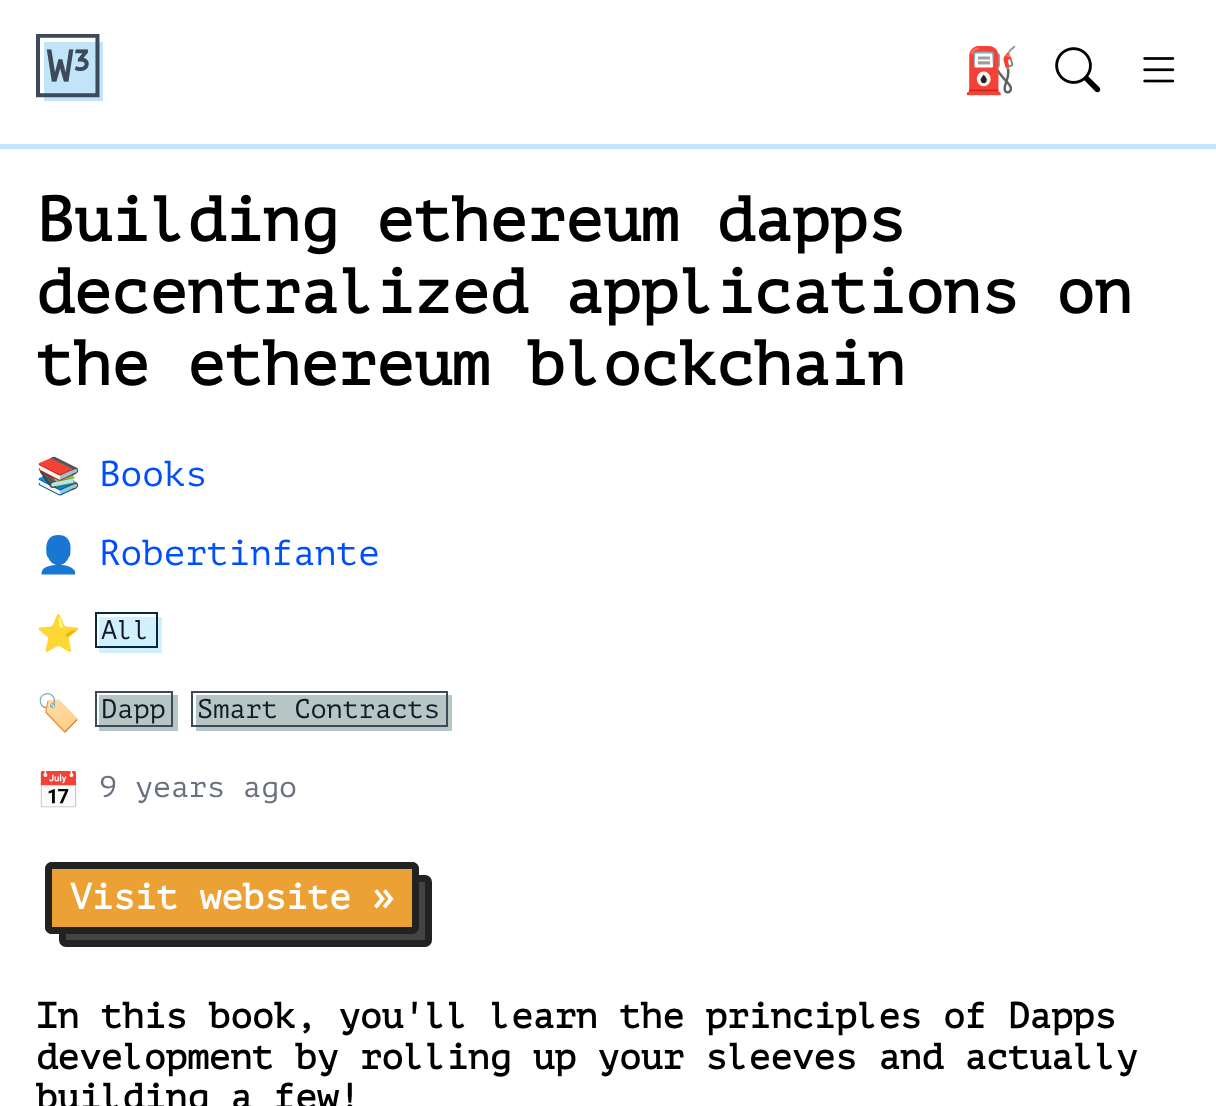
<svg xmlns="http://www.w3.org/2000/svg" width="1216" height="1106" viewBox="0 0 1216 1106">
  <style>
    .t1 { font: 45px Noto Color Emoji; fill: #151a26; }
    .t2 { font: bold 63px PT Mono; fill: #000; }
    .t3 { font: 36px Noto Color Emoji; fill: #000; }
    .t4 { font: 36px PT Mono; fill: #004fff; }
    .t5 { font: 27px PT Mono; fill: #151a26; }
    .t6 { font: 30px PT Mono; fill: #6a707f; }
    .t7 { font: bold 36px PT Mono; fill: #fff; }
    .t8 { font: bold 36px PT Mono; fill: #000; }
  </style>
  <rect width="100%" height="100%" fill="#fff"/>
  <rect x="0" y="144" width="1216" height="5" fill="#c1e5fb"/>
  <image x="36" y="34" width="67" height="67" href="images/1.png"/>
  <text x="963" y="86" class="t1">⛽</text>
  <image x="1055" y="47" width="46" height="46" href="images/2.png"/>
  <image x="1143" y="57" width="32" height="26" href="images/3.png"/>
  <text x="36" y="241" class="t2">Building ethereum dapps</text>
  <text x="36" y="313" class="t2">decentralized applications on</text>
  <text x="36" y="385" class="t2">the ethereum blockchain</text>
  <text x="36" y="488" class="t3">📚</text>
  <text x="99" y="486" class="t4">Books</text>
  <text x="36" y="567" class="t3">👤</text>
  <text x="99" y="565" class="t4">Robertinfante</text>
  <text x="36" y="646" class="t3">⭐</text>
  <rect x="99" y="617" width="63" height="36" fill="#d0f0fd"/>
  <rect x="96" y="613" width="61" height="34" fill="none" stroke="#04283f" stroke-width="2"/>
  <text x="101" y="639" class="t5">All</text>
  <text x="36" y="725" class="t3">🏷️</text>
  <rect x="99" y="695" width="79" height="36" fill="#b6c6c4"/>
  <rect x="96" y="692" width="76" height="34" fill="none" stroke="#3c4a59" stroke-width="2"/>
  <text x="101" y="718" class="t5">Dapp</text>
  <rect x="196" y="695" width="256" height="36" fill="#b6c6c4"/>
  <rect x="192" y="692" width="255" height="34" fill="none" stroke="#3c4a59" stroke-width="2"/>
  <text x="197" y="718" class="t5">Smart Contracts</text>
  <text x="36" y="803" class="t3">📅</text>
  <text x="99" y="797" class="t6">9 years ago</text>
  <rect x="48.5" y="865.5" width="367" height="65" rx="3.5" fill="none" stroke="#222" stroke-width="7"/>
  <rect x="62.5" y="878.5" width="366" height="65" rx="3.5" fill="#444" stroke="#222" stroke-width="7"/>
  <rect x="48.5" y="865.5" width="367" height="65" rx="3.5" fill="#eba134" stroke="#222" stroke-width="7"/>
  <text x="70" y="909" class="t7">Visit website »</text>
  <text x="36" y="1028" class="t8">In this book, you'll learn the principles of Dapps</text>
  <text x="36" y="1069" class="t8">development by rolling up your sleeves and actually</text>
  <text x="36" y="1109" class="t8">building a few!</text>
</svg>
